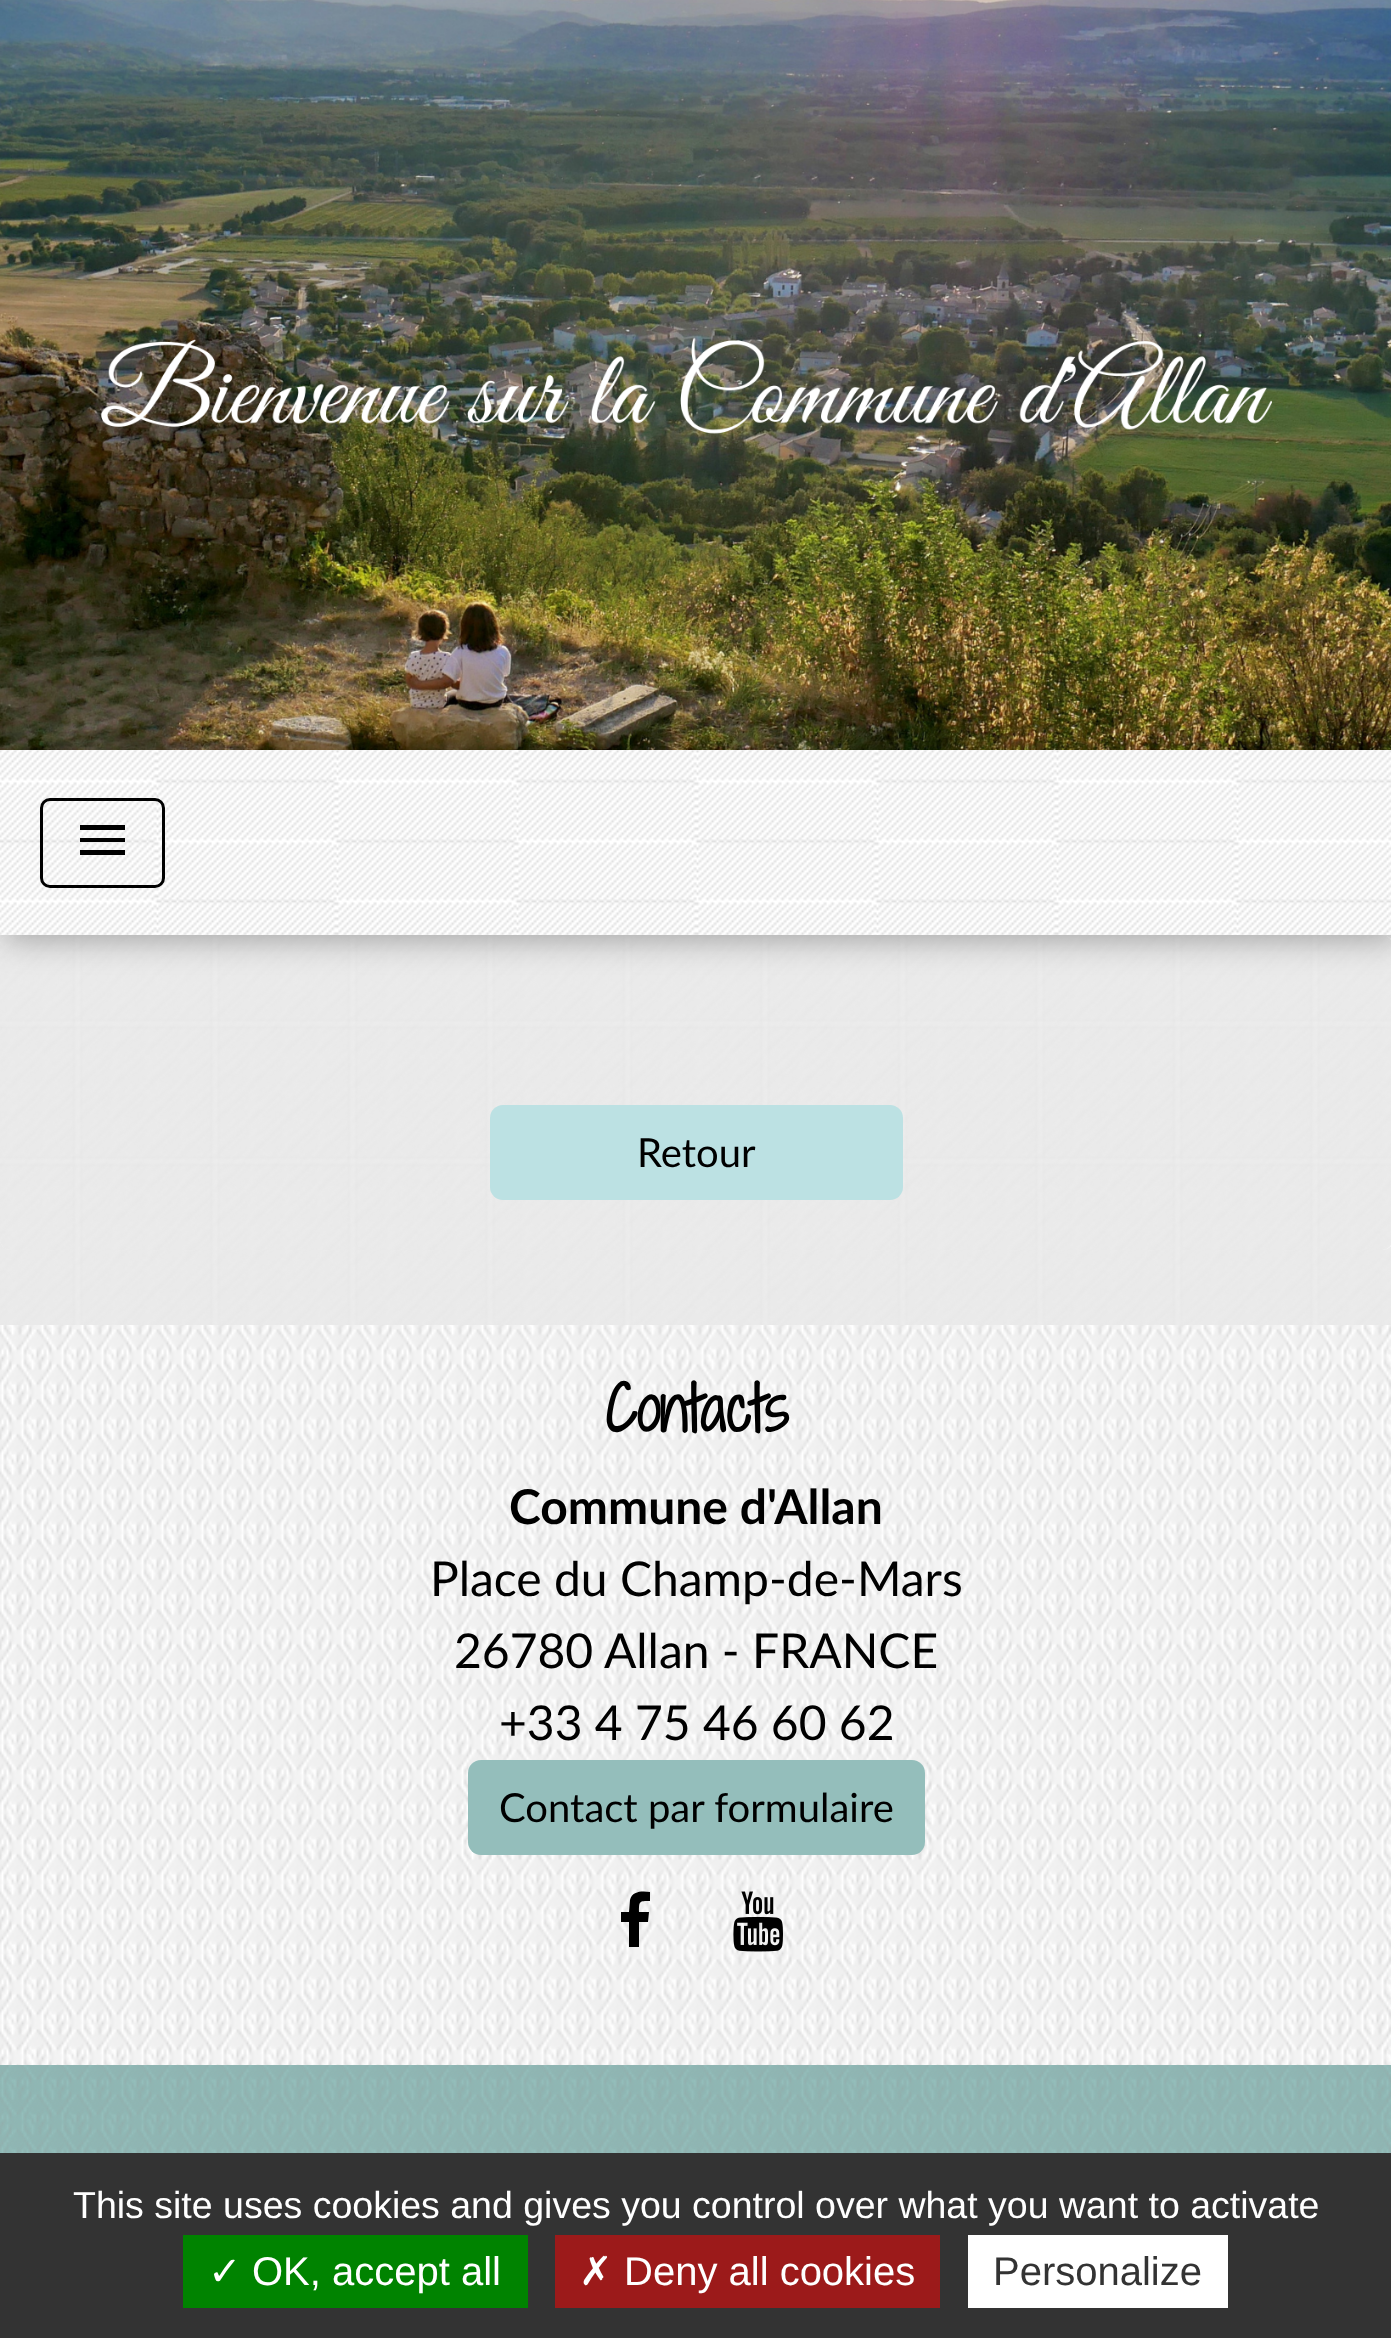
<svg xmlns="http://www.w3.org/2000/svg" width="1391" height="2338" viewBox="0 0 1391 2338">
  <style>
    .t1 { font: 40px Lato; fill: #000; }
    .t2 { font: bold 60px Shadows Into Light Two; fill: #000; }
    .t3 { font: bold 48px Lato; fill: #000; }
    .t4 { font: 48px Lato; fill: #000; }
    .t5 { font: 37.5px Liberation Sans; fill: #fff; }
    .t6 { font: 40px DejaVu Sans; fill: #fff; }
    .t7 { font: 40px Liberation Sans; fill: #fff; }
    .t8 { font: 40px Liberation Sans; fill: #333; }
  </style>
  <rect width="100%" height="100%" fill="#fff"/>
  <image x="0" y="935" width="1391" height="390" href="images/1.png"/>
  <image x="0" y="0" width="1391" height="750" href="images/2.png"/>
  <rect x="0" y="935" width="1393" height="315" rx="10" fill="#fff"/>
  <image x="0" y="935" width="1391" height="315" href="images/4.png"/>
  <rect x="5" y="755" width="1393" height="185" fill="#0000004d" filter="blur(16px)"/>
  <rect x="0" y="750" width="1391" height="185" fill="#fff"/>
  <image x="0" y="750" width="1391" height="185" href="images/3.png"/>
  <rect x="41.5" y="799.5" width="122" height="87" rx="8.5" fill="none" stroke="#000" stroke-width="3"/>
  <path d="M80 825H125V830H80ZM80 842V838H125V842ZM80 855V850H125V855Z" fill="#000"/>
  <rect x="490" y="1105" width="413" height="95" rx="13" fill="#bce1e3"/>
  <text x="637" y="1167" class="t1">Retour</text>
  <image x="0" y="1325" width="1391" height="740" href="images/5.png"/>
  <text x="605" y="1432" class="t2">Contacts</text>
  <text x="509" y="1524" class="t3">Commune d'Allan</text>
  <text x="430" y="1596" class="t4">Place du Champ-de-Mars</text>
  <text x="454" y="1668" class="t4">26780 Allan - FRANCE</text>
  <text x="499" y="1740" class="t4">+33 4 75 46 60 62</text>
  <rect x="468" y="1760" width="457" height="95" rx="13" fill="#94bebb"/>
  <text x="499" y="1822" class="t1">Contact par formulaire</text>
  <path d="M650 1892V1901C639 1901 639 1901 639 1912H649L648 1922H639V1947H629V1922H621V1912H629L630 1900C632 1891 642 1891 650 1892Z" fill="#000"/>
  <image x="733" y="1891" width="50" height="61" href="images/6.png"/>
  <rect x="0" y="2065" width="1391" height="88" fill="#94bebb"/>
  <image x="0" y="2065" width="1391" height="88" href="images/7.png"/>
  <rect x="0" y="2153" width="1391" height="185" fill="#333"/>
  <text x="73" y="2218" class="t5">This site uses cookies and gives you control over what you want to activate</text>
  <rect x="183" y="2235" width="345" height="73" fill="#008300"/>
  <text x="208" y="2285" class="t6">✓</text>
  <text x="252" y="2285" class="t7">OK, accept all</text>
  <rect x="555" y="2235" width="385" height="73" fill="#9c1a1a"/>
  <text x="579" y="2285" class="t6">✗</text>
  <text x="624" y="2285" class="t7">Deny all cookies</text>
  <rect x="968" y="2235" width="260" height="73" fill="#fff"/>
  <text x="993" y="2285" class="t8">Personalize</text>
</svg>
